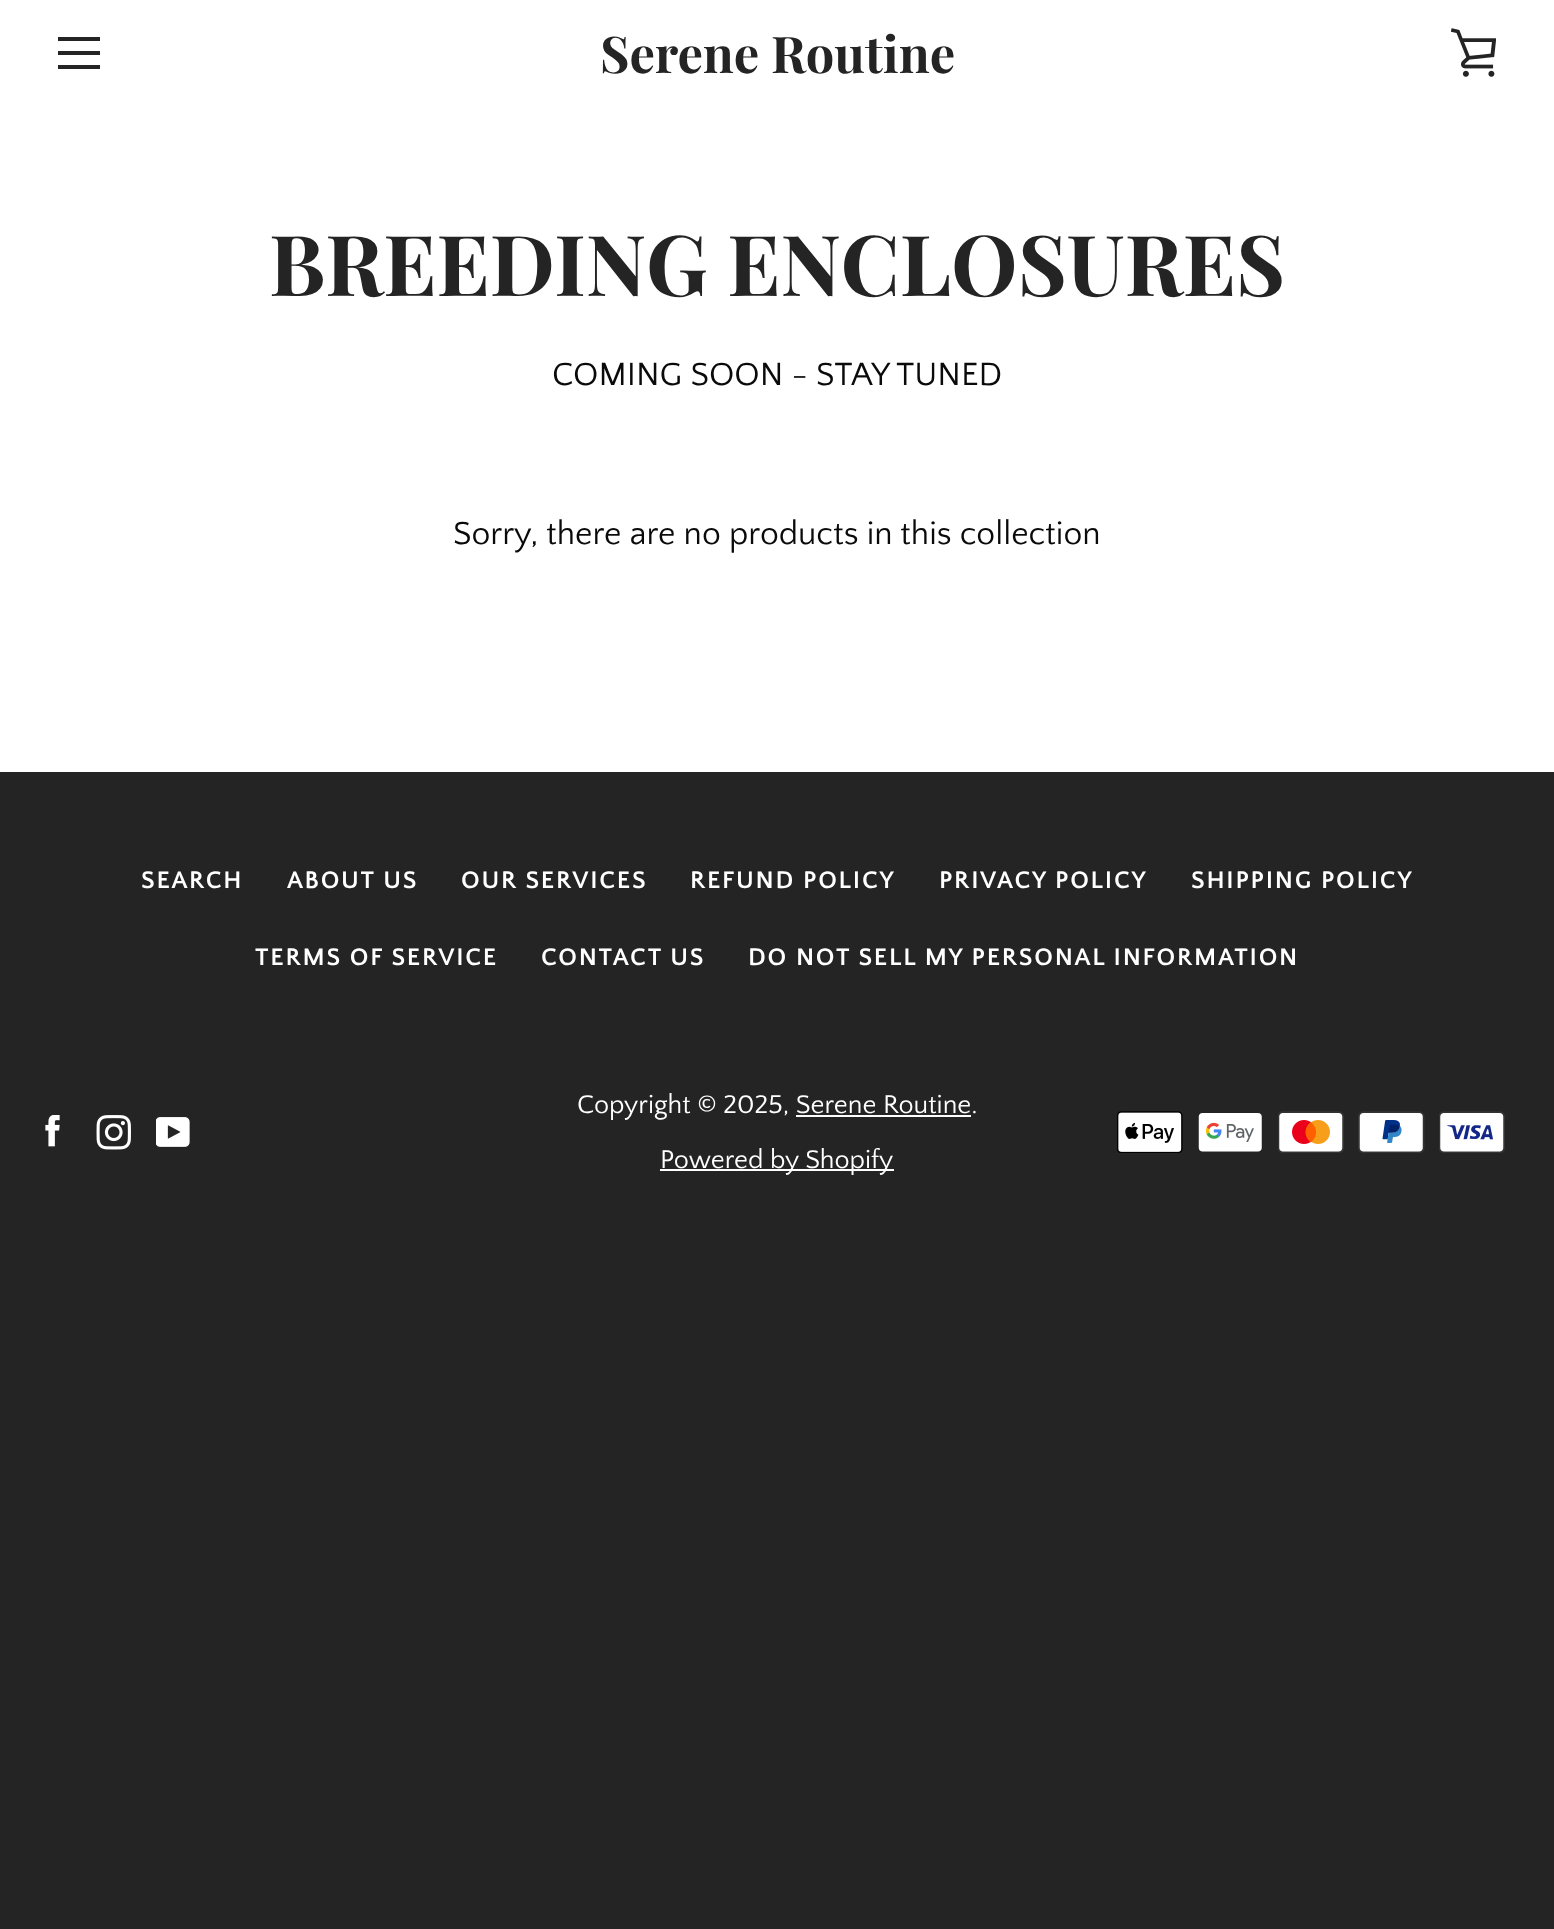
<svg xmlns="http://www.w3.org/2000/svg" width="1554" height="1929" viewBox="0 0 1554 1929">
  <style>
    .t1 { font: bold 50.5px Playfair Display; fill: #242424; }
    .t2 { font: bold 84px Playfair Display; fill: #242424; }
    .t3 { font: 33.6px Quattrocento Sans; fill: #0b0a0a; }
    .t4 { font: bold 25.2px Quattrocento Sans; letter-spacing: 1.75px; fill: #fff; }
    .t5 { font: 26.9px Quattrocento Sans; fill: #fff; }
  </style>
  <rect width="100%" height="100%" fill="#242424"/>
  <rect x="0" y="0" width="1554" height="772" fill="#fff"/>
  <rect x="58" y="37" width="42" height="4" fill="#242424"/>
  <rect x="58" y="51" width="42" height="4" fill="#242424"/>
  <rect x="58" y="65" width="42" height="4" fill="#242424"/>
  <text x="600" y="73" class="t1">Serene Routine</text>
  <image x="1451" y="28" width="45" height="49" href="images/1.png"/>
  <text x="269" y="296" class="t2">BREEDING ENCLOSURES</text>
  <text x="552" y="385" class="t3">COMING SOON - STAY TUNED</text>
  <text x="453" y="544" class="t3">Sorry, there are no products in this collection</text>
  <text x="141" y="888" class="t4">SEARCH</text>
  <text x="287" y="888" class="t4">ABOUT US</text>
  <text x="461" y="888" class="t4">OUR SERVICES</text>
  <text x="690" y="888" class="t4">REFUND POLICY</text>
  <text x="939" y="888" class="t4">PRIVACY POLICY</text>
  <text x="1191" y="888" class="t4">SHIPPING POLICY</text>
  <text x="255" y="965" class="t4">TERMS OF SERVICE</text>
  <text x="541" y="965" class="t4">CONTACT US</text>
  <text x="748" y="965" class="t4">DO NOT SELL MY PERSONAL INFORMATION</text>
  <image x="45" y="1115" width="15" height="32" href="images/2.png"/>
  <image x="96" y="1115" width="35" height="35" href="images/3.png"/>
  <image x="156" y="1117" width="34" height="30" href="images/4.png"/>
  <text x="577" y="1113" class="t5">Copyright © 2025, Serene Routine.</text>
  <rect x="796" y="1115" width="175" height="2" fill="#fff"/>
  <rect x="660" y="1169" width="234" height="2" fill="#fff"/>
  <text x="660" y="1168" class="t5">Powered by Shopify</text>
  <image x="1117" y="1111" width="66" height="42" href="images/5.png"/>
  <image x="1198" y="1113" width="64" height="39" href="images/6.png"/>
  <image x="1278" y="1111" width="66" height="42" href="images/7.png"/>
  <image x="1358" y="1111" width="67" height="42" href="images/8.png"/>
  <image x="1439" y="1111" width="66" height="42" href="images/9.png"/>
</svg>
